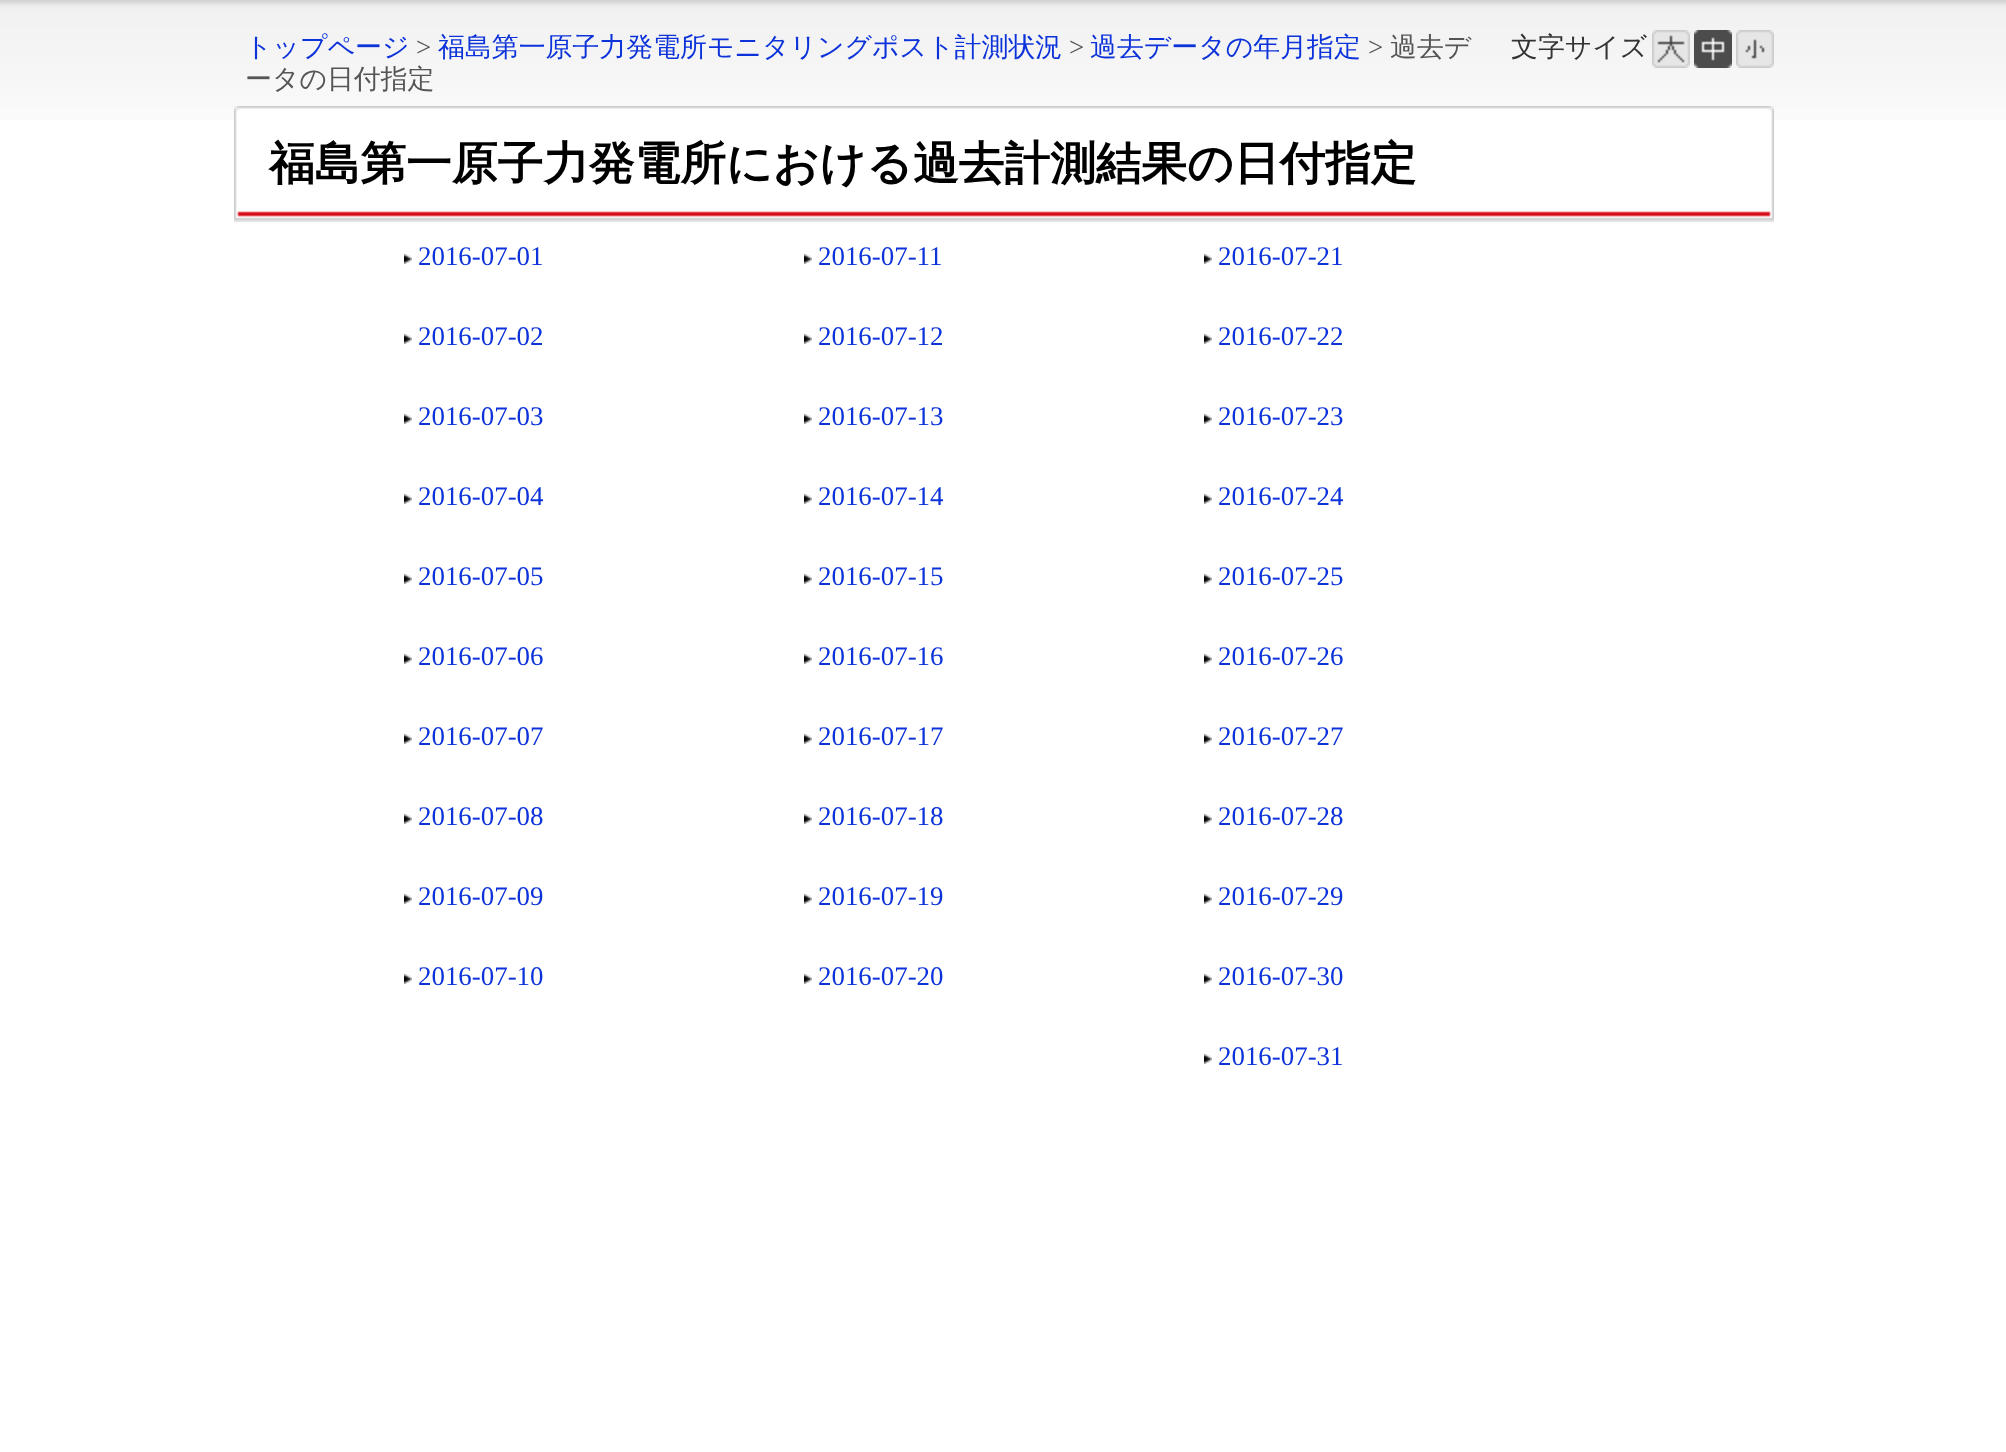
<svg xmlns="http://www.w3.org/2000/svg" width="2006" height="1452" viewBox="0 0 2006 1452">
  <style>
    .t1 { font: 500 26.9px WenQuanYi Zen Hei; fill: #0c33da; }
    .t2 { font: 26.9px Liberation Serif; fill: #555; }
    .t3 { font: 500 26.9px WenQuanYi Zen Hei; fill: #555; }
    .t4 { font: 500 26.9px WenQuanYi Zen Hei; fill: #333; }
    .t5 { font: bold 45.7px WenQuanYi Zen Hei; fill: #000; }
    .t6 { font: 26.9px Liberation Serif; fill: #0c33da; }
  </style>
  <rect width="100%" height="100%" fill="#fff"/>
  <image x="0" y="0" width="2006" height="120" href="images/1.png"/>
  <text x="245" y="56" class="t1">トップページ</text>
  <text x="416" y="56" class="t2">&gt;</text>
  <text x="438" y="56" class="t1">福島第一原子力発電所モニタリングポスト計測状況</text>
  <text x="1069" y="56" class="t2">&gt;</text>
  <text x="1090" y="56" class="t1">過去データの年月指定</text>
  <text x="1368" y="56" class="t2">&gt;</text>
  <text x="1390" y="56" class="t3">過去デ</text>
  <text x="245" y="88" class="t3">ータの日付指定</text>
  <text x="1511" y="56" class="t4">文字サイズ</text>
  <image x="1652" y="30" width="38" height="38" href="images/2.png"/>
  <image x="1694" y="30" width="38" height="38" href="images/3.png"/>
  <image x="1736" y="30" width="38" height="38" href="images/4.png"/>
  <image x="234" y="106" width="1540" height="105" href="images/5.png"/>
  <image x="234" y="211" width="1540" height="11" href="images/6.png"/>
  <text x="269" y="179" class="t5">福島第一原子力発電所における過去計測結果の日付指定</text>
  <image x="404" y="254" width="8" height="10" href="images/7.png"/>
  <text x="418" y="265" class="t6">2016-07-01</text>
  <image x="804" y="254" width="8" height="10" href="images/7.png"/>
  <text x="818" y="265" class="t6">2016-07-11</text>
  <image x="1204" y="254" width="8" height="10" href="images/7.png"/>
  <text x="1218" y="265" class="t6">2016-07-21</text>
  <image x="404" y="334" width="8" height="10" href="images/7.png"/>
  <text x="418" y="345" class="t6">2016-07-02</text>
  <image x="804" y="334" width="8" height="10" href="images/7.png"/>
  <text x="818" y="345" class="t6">2016-07-12</text>
  <image x="1204" y="334" width="8" height="10" href="images/7.png"/>
  <text x="1218" y="345" class="t6">2016-07-22</text>
  <image x="404" y="414" width="8" height="10" href="images/7.png"/>
  <text x="418" y="425" class="t6">2016-07-03</text>
  <image x="804" y="414" width="8" height="10" href="images/7.png"/>
  <text x="818" y="425" class="t6">2016-07-13</text>
  <image x="1204" y="414" width="8" height="10" href="images/7.png"/>
  <text x="1218" y="425" class="t6">2016-07-23</text>
  <image x="404" y="494" width="8" height="10" href="images/7.png"/>
  <text x="418" y="505" class="t6">2016-07-04</text>
  <image x="804" y="494" width="8" height="10" href="images/7.png"/>
  <text x="818" y="505" class="t6">2016-07-14</text>
  <image x="1204" y="494" width="8" height="10" href="images/7.png"/>
  <text x="1218" y="505" class="t6">2016-07-24</text>
  <image x="404" y="574" width="8" height="10" href="images/7.png"/>
  <text x="418" y="585" class="t6">2016-07-05</text>
  <image x="804" y="574" width="8" height="10" href="images/7.png"/>
  <text x="818" y="585" class="t6">2016-07-15</text>
  <image x="1204" y="574" width="8" height="10" href="images/7.png"/>
  <text x="1218" y="585" class="t6">2016-07-25</text>
  <image x="404" y="654" width="8" height="10" href="images/7.png"/>
  <text x="418" y="665" class="t6">2016-07-06</text>
  <image x="804" y="654" width="8" height="10" href="images/7.png"/>
  <text x="818" y="665" class="t6">2016-07-16</text>
  <image x="1204" y="654" width="8" height="10" href="images/7.png"/>
  <text x="1218" y="665" class="t6">2016-07-26</text>
  <image x="404" y="734" width="8" height="10" href="images/7.png"/>
  <text x="418" y="745" class="t6">2016-07-07</text>
  <image x="804" y="734" width="8" height="10" href="images/7.png"/>
  <text x="818" y="745" class="t6">2016-07-17</text>
  <image x="1204" y="734" width="8" height="10" href="images/7.png"/>
  <text x="1218" y="745" class="t6">2016-07-27</text>
  <image x="404" y="814" width="8" height="10" href="images/7.png"/>
  <text x="418" y="825" class="t6">2016-07-08</text>
  <image x="804" y="814" width="8" height="10" href="images/7.png"/>
  <text x="818" y="825" class="t6">2016-07-18</text>
  <image x="1204" y="814" width="8" height="10" href="images/7.png"/>
  <text x="1218" y="825" class="t6">2016-07-28</text>
  <image x="404" y="894" width="8" height="10" href="images/7.png"/>
  <text x="418" y="905" class="t6">2016-07-09</text>
  <image x="804" y="894" width="8" height="10" href="images/7.png"/>
  <text x="818" y="905" class="t6">2016-07-19</text>
  <image x="1204" y="894" width="8" height="10" href="images/7.png"/>
  <text x="1218" y="905" class="t6">2016-07-29</text>
  <image x="404" y="974" width="8" height="10" href="images/7.png"/>
  <text x="418" y="985" class="t6">2016-07-10</text>
  <image x="804" y="974" width="8" height="10" href="images/7.png"/>
  <text x="818" y="985" class="t6">2016-07-20</text>
  <image x="1204" y="974" width="8" height="10" href="images/7.png"/>
  <text x="1218" y="985" class="t6">2016-07-30</text>
  <image x="1204" y="1054" width="8" height="10" href="images/7.png"/>
  <text x="1218" y="1065" class="t6">2016-07-31</text>
</svg>
